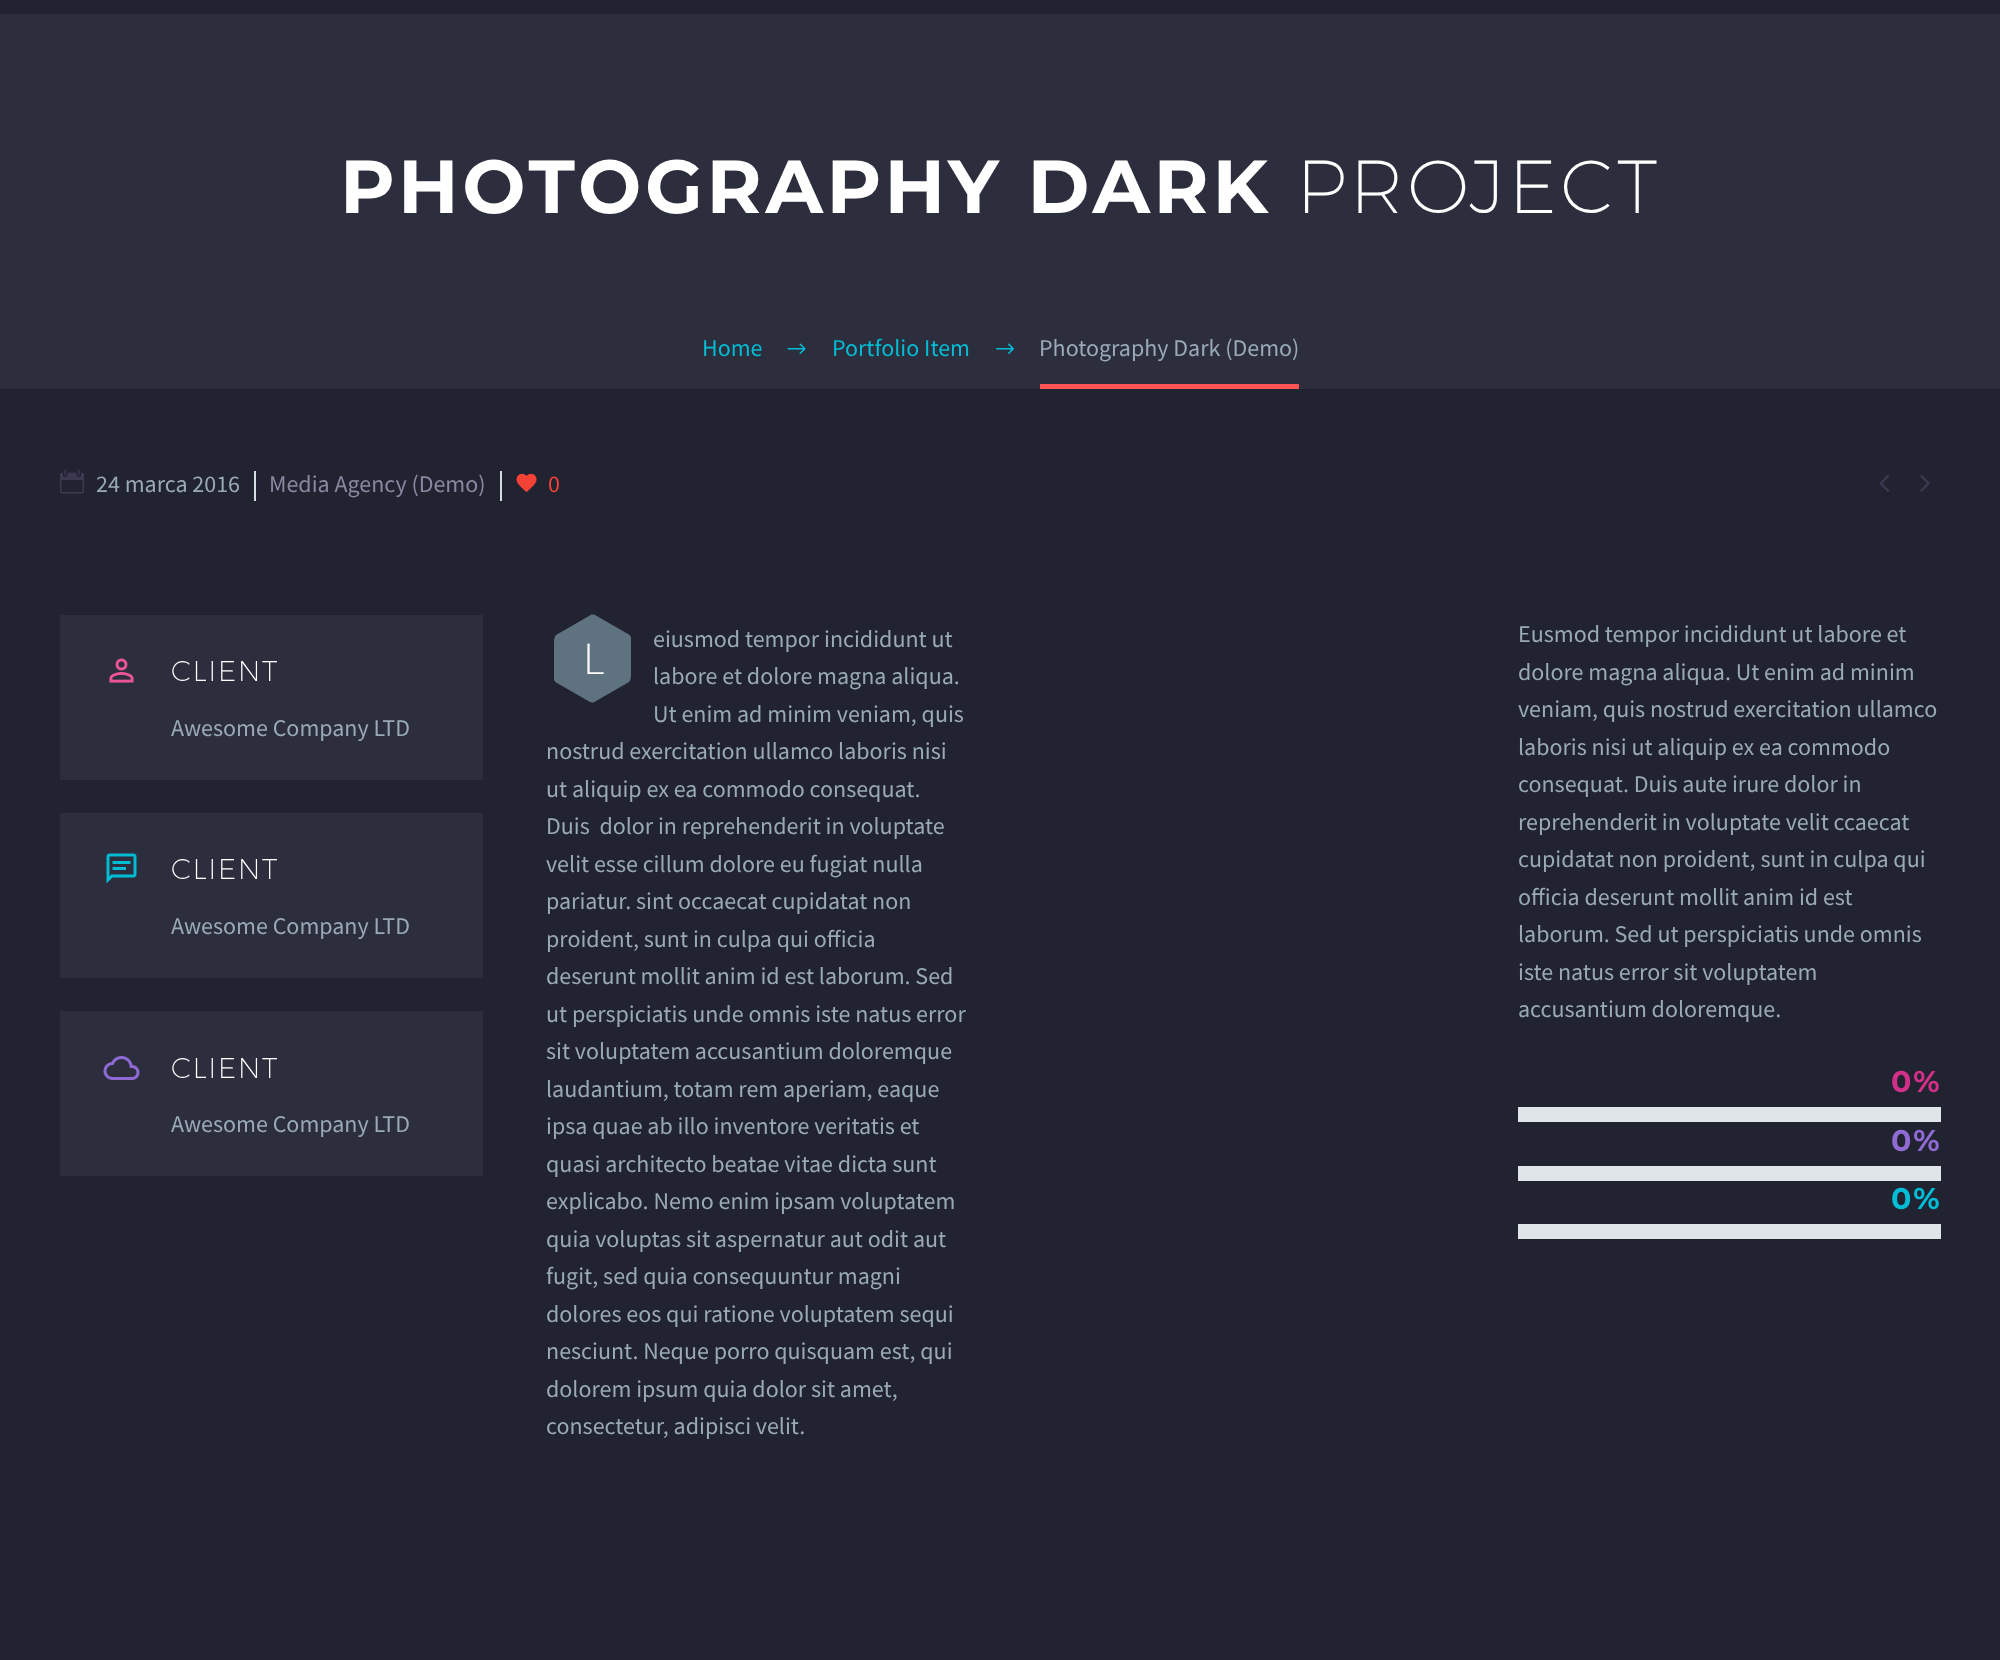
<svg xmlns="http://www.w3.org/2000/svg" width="2000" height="1660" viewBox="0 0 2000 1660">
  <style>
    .t1 { font: bold 75px Montserrat; letter-spacing: 3.75px; fill: #fff; }
    .t2 { font: 200 75px Montserrat; letter-spacing: 3.75px; fill: #fff; }
    .t3 { font: 24px Source Sans Pro; fill: #00bcd4; }
    .t4 { font: 24px Source Sans Pro; fill: #99a9b5; }
    .t5 { font: 24px Source Sans Pro; fill: #8888a0; }
    .t6 { font: 24px Source Sans Pro; fill: #f44336; }
    .t7 { font: 200 28.5px Montserrat; letter-spacing: 1.5px; fill: #fff; }
    .t8 { font: 300 46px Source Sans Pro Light; fill: #fff; }
    .t9 { font: bold 30px Montserrat; letter-spacing: 2px; fill: #d23088; }
    .t10 { font: bold 30px Montserrat; letter-spacing: 2px; fill: #906ad3; }
    .t11 { font: bold 30px Montserrat; letter-spacing: 2px; fill: #00bcd4; }
  </style>
  <rect width="100%" height="100%" fill="#212331"/>
  <rect x="0" y="14" width="2000" height="375" fill="#2c2e3d"/>
  <text x="340" y="213" class="t1">PHOTOGRAPHY DARK</text>
  <text x="1296" y="213" class="t2">PROJECT</text>
  <text x="702" y="356" class="t3">Home</text>
  <image x="787" y="343" width="19" height="11" href="images/1.png"/>
  <text x="832" y="356" class="t3">Portfolio Item</text>
  <image x="996" y="343" width="18" height="11" href="images/2.png"/>
  <rect x="1040" y="384" width="259" height="5" fill="#ff5252"/>
  <text x="1039" y="356" class="t4">Photography Dark (Demo)</text>
  <image x="60" y="469" width="24" height="25" href="images/3.png"/>
  <text x="96" y="492" class="t4">24 marca 2016</text>
  <rect x="254" y="471" width="2" height="30" fill="#d4dee1"/>
  <text x="269" y="492" class="t5">Media Agency (Demo)</text>
  <rect x="500" y="471" width="2" height="30" fill="#d4dee1"/>
  <image x="516" y="473" width="21" height="20" href="images/4.png"/>
  <text x="548" y="492" class="t6">0</text>
  <image x="1879" y="475" width="10" height="17" href="images/5.png"/>
  <image x="1920" y="475" width="10" height="17" href="images/6.png"/>
  <rect x="60" y="615" width="423" height="165" fill="#2c2e3d"/>
  <image x="109" y="658" width="13" height="25" href="images/7.png"/>
  <image x="122" y="658" width="12" height="25" href="images/8.png"/>
  <text x="171" y="681" class="t7">CLIENT</text>
  <text x="171" y="736" class="t4">Awesome Company LTD</text>
  <rect x="60" y="813" width="423" height="165" fill="#2c2e3d"/>
  <image x="106" y="853" width="16" height="31" href="images/9.png"/>
  <image x="122" y="853" width="15" height="25" href="images/10.png"/>
  <text x="171" y="879" class="t7">CLIENT</text>
  <text x="171" y="934" class="t4">Awesome Company LTD</text>
  <rect x="60" y="1011" width="423" height="165" fill="#2c2e3d"/>
  <image x="103" y="1056" width="19" height="24" href="images/11.png"/>
  <image x="122" y="1056" width="18" height="24" href="images/12.png"/>
  <text x="171" y="1078" class="t7">CLIENT</text>
  <text x="171" y="1132" class="t4">Awesome Company LTD</text>
  <text x="653" y="647" class="t4">eiusmod tempor incididunt ut</text>
  <text x="653" y="684" class="t4">labore et dolore magna aliqua.</text>
  <text x="653" y="722" class="t4">Ut enim ad minim veniam, quis</text>
  <text x="546" y="759" class="t4">nostrud exercitation ullamco laboris nisi</text>
  <text x="546" y="797" class="t4">ut aliquip ex ea commodo consequat.</text>
  <text x="546" y="834" class="t4" xml:space="preserve">Duis  dolor in reprehenderit in voluptate</text>
  <text x="546" y="872" class="t4">velit esse cillum dolore eu fugiat nulla</text>
  <text x="546" y="909" class="t4">pariatur. sint occaecat cupidatat non</text>
  <text x="546" y="947" class="t4">proident, sunt in culpa qui officia</text>
  <text x="546" y="984" class="t4">deserunt mollit anim id est laborum. Sed</text>
  <text x="546" y="1022" class="t4">ut perspiciatis unde omnis iste natus error</text>
  <text x="546" y="1059" class="t4">sit voluptatem accusantium doloremque</text>
  <text x="546" y="1097" class="t4">laudantium, totam rem aperiam, eaque</text>
  <text x="546" y="1134" class="t4">ipsa quae ab illo inventore veritatis et</text>
  <text x="546" y="1172" class="t4">quasi architecto beatae vitae dicta sunt</text>
  <text x="546" y="1209" class="t4">explicabo. Nemo enim ipsam voluptatem</text>
  <text x="546" y="1247" class="t4">quia voluptas sit aspernatur aut odit aut</text>
  <text x="546" y="1284" class="t4">fugit, sed quia consequuntur magni</text>
  <text x="546" y="1322" class="t4">dolores eos qui ratione voluptatem sequi</text>
  <text x="546" y="1359" class="t4">nesciunt. Neque porro quisquam est, qui</text>
  <text x="546" y="1397" class="t4">dolorem ipsum quia dolor sit amet,</text>
  <text x="546" y="1434" class="t4">consectetur, adipisci velit.</text>
  <path d="M590 702L557 683C556 683 555 681 554 680V641C554 639 555 636 556 635L589 616C590 615 592 614 595 615L628 634C629 634 630 636 631 637V676C631 678 630 681 629 682L596 701C595 702 593 703 590 702Z" fill="#5f727f"/>
  <text x="583" y="674" class="t8">L</text>
  <text x="1518" y="642" class="t4">Eusmod tempor incididunt ut labore et</text>
  <text x="1518" y="680" class="t4">dolore magna aliqua. Ut enim ad minim</text>
  <text x="1518" y="717" class="t4">veniam, quis nostrud exercitation ullamco</text>
  <text x="1518" y="755" class="t4">laboris nisi ut aliquip ex ea commodo</text>
  <text x="1518" y="792" class="t4">consequat. Duis aute irure dolor in</text>
  <text x="1518" y="830" class="t4">reprehenderit in voluptate velit ccaecat</text>
  <text x="1518" y="867" class="t4">cupidatat non proident, sunt in culpa qui</text>
  <text x="1518" y="905" class="t4">officia deserunt mollit anim id est</text>
  <text x="1518" y="942" class="t4">laborum. Sed ut perspiciatis unde omnis</text>
  <text x="1518" y="980" class="t4">iste natus error sit voluptatem</text>
  <text x="1518" y="1017" class="t4">accusantium doloremque.</text>
  <text x="1891" y="1092" class="t9">0%</text>
  <rect x="1518" y="1107" width="423" height="15" fill="#dfe5e8"/>
  <text x="1891" y="1151" class="t10">0%</text>
  <rect x="1518" y="1166" width="423" height="15" fill="#dfe5e8"/>
  <text x="1891" y="1209" class="t11">0%</text>
  <rect x="1518" y="1224" width="423" height="15" fill="#dfe5e8"/>
</svg>
